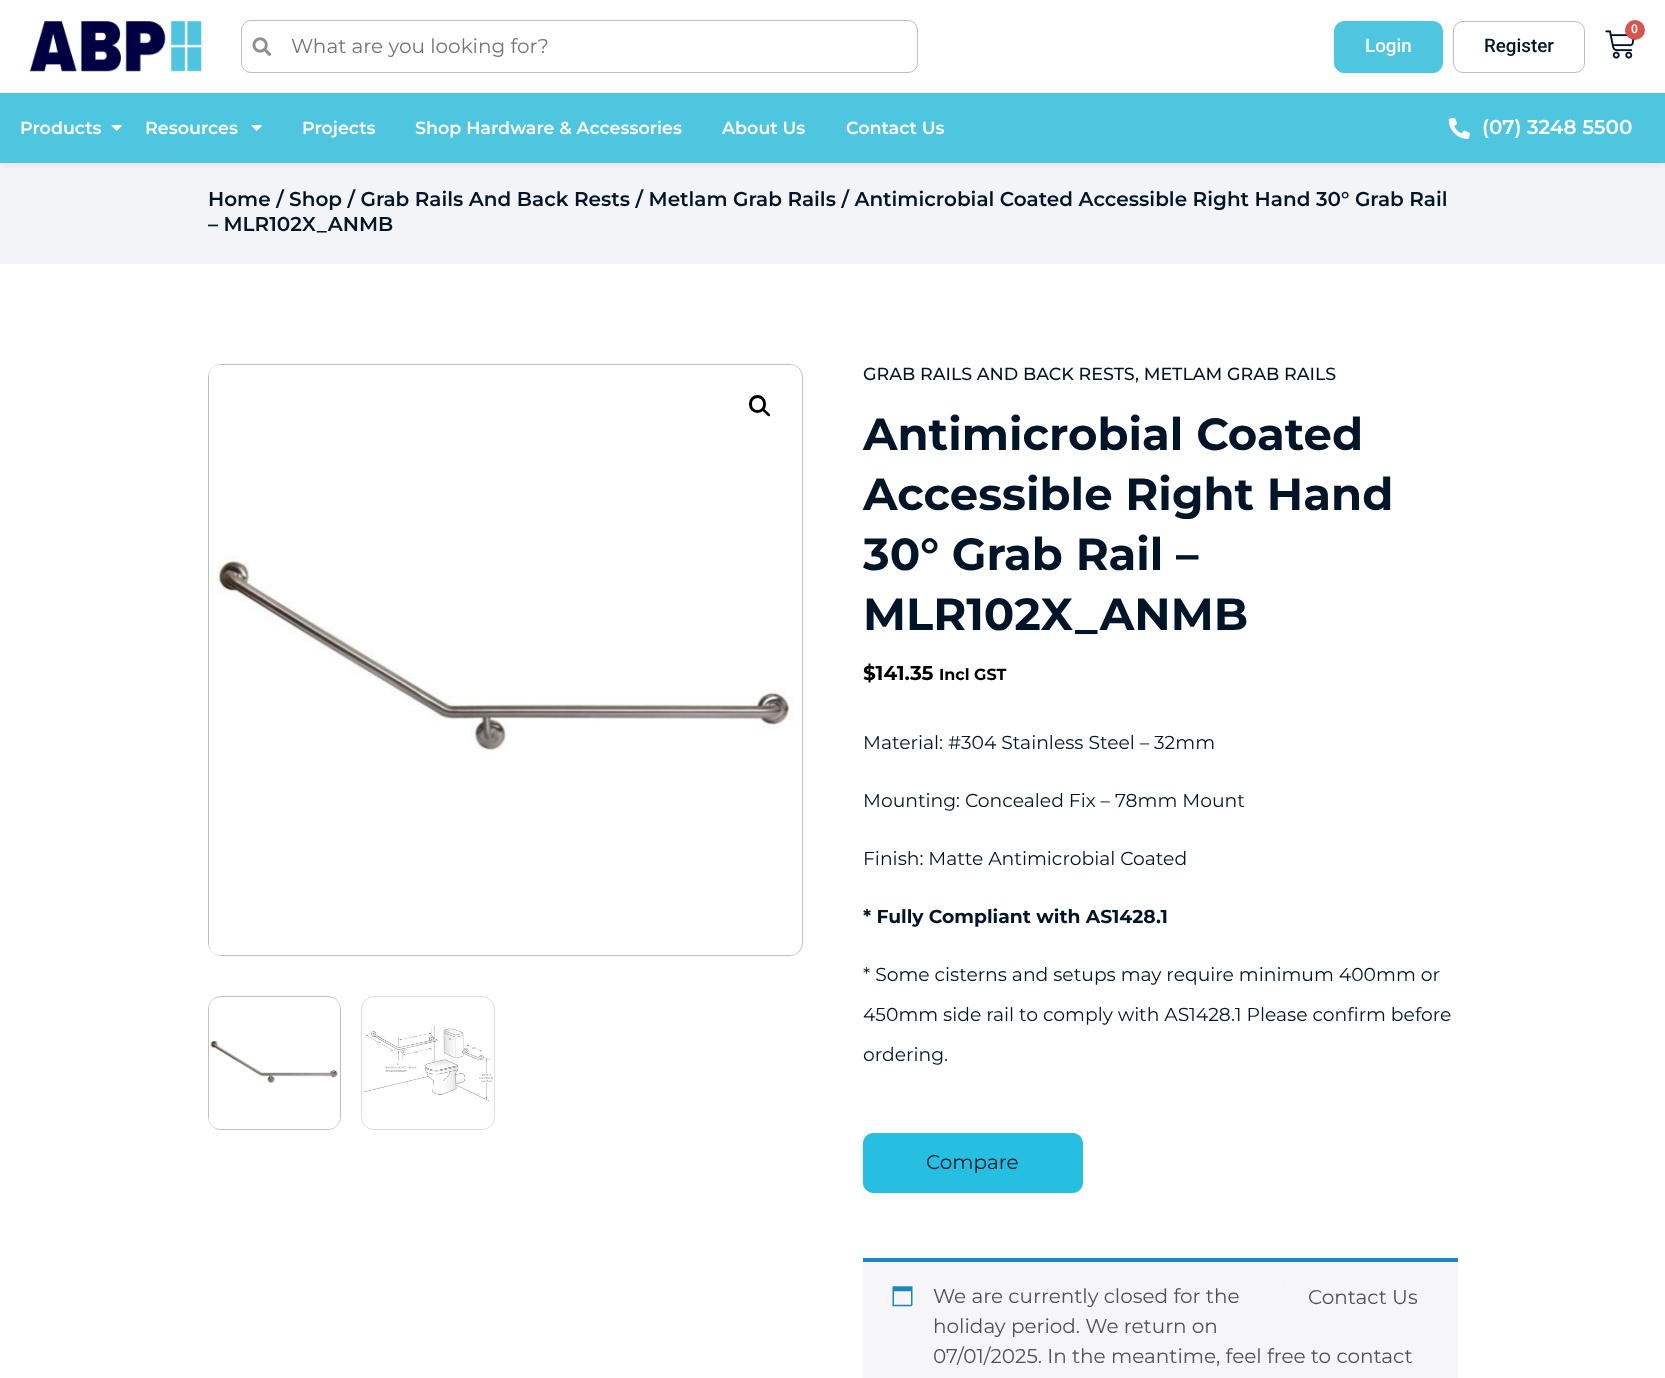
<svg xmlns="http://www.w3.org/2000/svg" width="1665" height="1378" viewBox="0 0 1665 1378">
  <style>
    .t1 { font: 20px Montserrat; fill: #757575; }
    .t2 { font: 600 12px Roboto; fill: #fff; }
    .t3 { font: 500 18.75px Roboto; fill: #fff; }
    .t4 { font: 500 18.75px Roboto; fill: #001527; }
    .t5 { font: 600 17.5px Montserrat; fill: #fff; }
    .t6 { font: 600 20px Montserrat; fill: #fff; }
    .t7 { font: 600 20px Montserrat; fill: #001527; }
    .t8 { font: 500 17.5px Montserrat; fill: #001527; }
    .t9 { font: bold 45px Montserrat; fill: #001527; }
    .t10 { font: bold 20px Montserrat; fill: #000; }
    .t11 { font: bold 16px Montserrat; fill: #000; }
    .t12 { font: 18.75px Montserrat; fill: #001527; }
    .t13 { font: bold 18.75px Montserrat; fill: #001527; }
    .t14 { font: 20px Montserrat; fill: #001527; }
    .t15 { font: 20px Montserrat; fill: #515151; }
  </style>
  <defs>
    <clipPath id="clip1"><rect x="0" y="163" width="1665" height="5"/></clipPath>
  </defs>
  <rect width="100%" height="100%" fill="#fff"/>
  <rect x="0" y="163" width="1665" height="101" fill="#f2f4f7"/>
  <g clip-path="url(#clip1)">
    <rect x="0" y="0" width="1665" height="163" fill="#0000001a" filter="blur(6px)"/>
  </g>
  <image x="30" y="21" width="172" height="51" href="images/1.png"/>
  <rect x="241.5" y="20.5" width="676" height="52" rx="9.5" fill="none" stroke="#bdbdbd"/>
  <image x="252" y="37" width="20" height="19" href="images/2.png"/>
  <text x="291" y="53" class="t1">What are you looking for?</text>
  <image x="1605" y="30" width="30" height="29" href="images/3.png"/>
  <circle cx="1635" cy="30" r="10" fill="#d9534f"/>
  <text x="1631" y="33" class="t2">0</text>
  <rect x="1334.5" y="21.5" width="108" height="51" rx="9.5" fill="#4fc6e0" stroke="#4fc6e0"/>
  <text x="1365" y="52" class="t3">Login</text>
  <rect x="1453.5" y="21.5" width="131" height="51" rx="9.5" fill="none" stroke="#bdbdbd"/>
  <text x="1484" y="52" class="t4">Register</text>
  <rect x="0" y="93" width="1665" height="70" fill="#4fc6e0"/>
  <text x="20" y="134" class="t5">Products</text>
  <image x="111" y="125" width="11" height="6" href="images/4.png"/>
  <text x="145" y="134" class="t5">Resources</text>
  <image x="251" y="125" width="11" height="6" href="images/4.png"/>
  <text x="302" y="134" class="t5">Projects</text>
  <text x="415" y="134" class="t5">Shop Hardware &amp; Accessories</text>
  <text x="722" y="134" class="t5">About Us</text>
  <text x="846" y="134" class="t5">Contact Us</text>
  <image x="1448" y="117" width="22" height="22" href="images/5.png"/>
  <text x="1482" y="134" class="t6">(07) 3248 5500</text>
  <text x="208" y="206" class="t7">Home / Shop / Grab Rails And Back Rests / Metlam Grab Rails / Antimicrobial Coated Accessible Right Hand 30° Grab Rail</text>
  <text x="208" y="231" class="t7">– MLR102X_ANMB</text>
  <rect x="208.5" y="364.5" width="594" height="591" rx="12.5" fill="none" stroke="#bdbdbd"/>
  <image x="209" y="365" width="592" height="590" href="images/6.png"/>
  <rect x="750.5" y="396.5" width="14" height="15" rx="7" fill="none" stroke="#000" stroke-width="3"/>
  <path d="M762.5 409C764 407.5 766.5 411 767 411.5C768 412.5 771 414.5 770 416C768.5 417.5 766 414 765.5 413.5C764.5 412.5 761.5 410.5 762.5 409Z" fill="#000"/>
  <rect x="208.5" y="996.5" width="132" height="133" rx="12.5" fill="none" stroke="#bdbdbd"/>
  <image x="208" y="998" width="132" height="131" href="images/7.png"/>
  <rect x="361.5" y="996.5" width="133" height="133" rx="12.5" fill="none" stroke="#dedede"/>
  <image x="363" y="1025" width="130" height="103" href="images/8.png"/>
  <text x="863" y="380" class="t8">GRAB RAILS AND BACK RESTS</text>
  <text x="1135" y="380" class="t8">, METLAM GRAB RAILS</text>
  <text x="863" y="450" class="t9">Antimicrobial Coated</text>
  <text x="863" y="510" class="t9">Accessible Right Hand</text>
  <text x="863" y="570" class="t9">30° Grab Rail –</text>
  <text x="863" y="630" class="t9">MLR102X_ANMB</text>
  <text x="863" y="680" class="t10">$141.35</text>
  <text x="939" y="680" class="t11">Incl GST</text>
  <text x="863" y="749" class="t12">Material: #304 Stainless Steel – 32mm</text>
  <text x="863" y="807" class="t12">Mounting: Concealed Fix – 78mm Mount</text>
  <text x="863" y="865" class="t12">Finish: Matte Antimicrobial Coated</text>
  <text x="863" y="923" class="t13">* Fully Compliant with AS1428.1</text>
  <text x="863" y="981" class="t12">* Some cisterns and setups may require minimum 400mm or</text>
  <text x="863" y="1021" class="t12">450mm side rail to comply with AS1428.1 Please confirm before</text>
  <text x="863" y="1061" class="t12">ordering.</text>
  <rect x="863.5" y="1133.5" width="219" height="59" rx="9.5" fill="#26bfe2" stroke="#26bfe2"/>
  <text x="926" y="1169" class="t14">Compare</text>
  <rect x="863" y="1262" width="595" height="116" fill="#f6f5f8"/>
  <rect x="863" y="1258" width="595" height="4" fill="#1e85be"/>
  <image x="892" y="1286" width="21" height="21" href="images/9.png"/>
  <text x="933" y="1303" class="t15">We are currently closed for the</text>
  <rect x="1286" y="1281" width="1" height="33" fill="#f8f8fa"/>
  <text x="1308" y="1304" class="t15">Contact Us</text>
  <text x="933" y="1333" class="t15">holiday period. We return on</text>
  <text x="933" y="1363" class="t15">07/01/2025. In the meantime, feel free to contact</text>
</svg>
